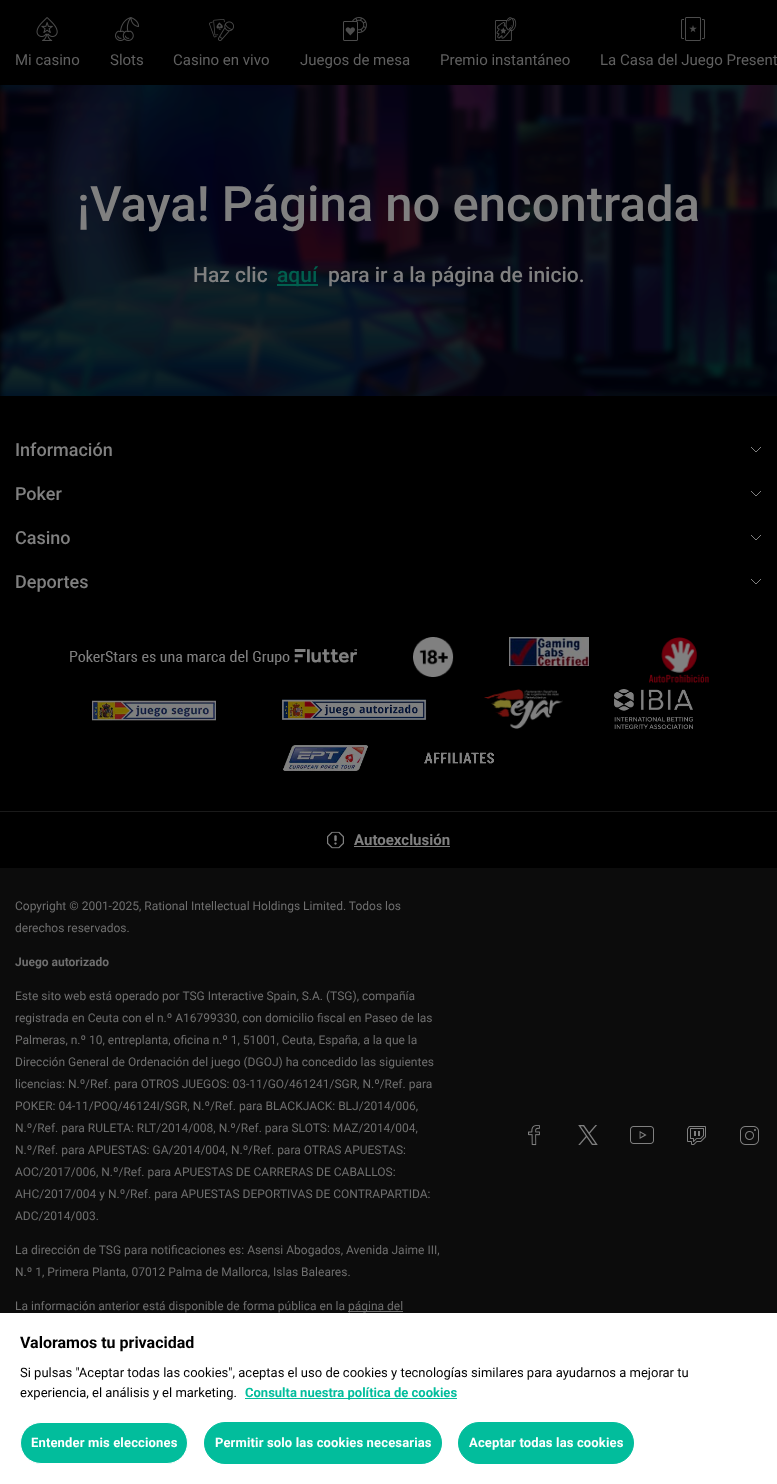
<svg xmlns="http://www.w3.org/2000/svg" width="777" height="1484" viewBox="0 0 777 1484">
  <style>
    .t1 { font: 15px Roboto; fill: #606060; }
    .t2 { font: 500 49px Roboto; fill: #808080; }
    .t3 { font: 500 21px Roboto; fill: #808080; }
    .t4 { font: 500 21px Roboto; fill: #015f4e; }
    .t5 { font: 500 18px Roboto; fill: #808080; }
    .t6 { font: bold 15px Roboto; fill: #808080; }
    .t7 { font: 12px Roboto; fill: #6f6f6f; }
    .t8 { font: bold 12px Roboto; fill: #6f6f6f; }
    .t9 { font: bold 16px Roboto; fill: #000; }
    .t10 { font: 13px Roboto; fill: #000; }
    .t11 { font: bold 13px Roboto; fill: #02bd9c; }
    .t12 { font: bold 13px Roboto; letter-spacing: 0.15px; fill: #fff; }
  </style>
  <rect width="100%" height="100%" fill="#000"/>
  <image x="36" y="17" width="22" height="24" href="images/1.png"/>
  <text x="15" y="65" class="t1">Mi casino</text>
  <image x="115" y="17" width="24" height="24" href="images/2.png"/>
  <text x="110" y="65" class="t1">Slots</text>
  <image x="209" y="19" width="25" height="22" href="images/3.png"/>
  <text x="173" y="65" class="t1">Casino en vivo</text>
  <image x="343" y="17" width="24" height="24" href="images/4.png"/>
  <text x="300" y="65" class="t1">Juegos de mesa</text>
  <image x="495" y="17" width="22" height="24" href="images/5.png"/>
  <text x="440" y="65" class="t1">Premio instantáneo</text>
  <image x="681" y="17" width="24" height="24" href="images/6.png"/>
  <text x="600" y="65" class="t1">La Casa del Juego Present</text>
  <image x="0" y="85" width="777" height="311" href="images/7.png"/>
  <text x="77" y="221" class="t2">¡Vaya! Página no encontrada</text>
  <text x="193" y="282" class="t3">Haz clic</text>
  <rect x="277" y="284" width="41" height="2" fill="#015f4e"/>
  <text x="277" y="282" class="t4">aquí</text>
  <text x="328" y="282" class="t3">para ir a la página de inicio.</text>
  <text x="15" y="456" class="t5">Información</text>
  <path d="M761 447L756 452L751 447M761 491L756 496L751 491" fill="none" stroke="#808080"/>
  <text x="15" y="500" class="t5">Poker</text>
  <text x="15" y="544" class="t5">Casino</text>
  <path d="M761 535L756 540L751 535M761 579L756 584L751 579" fill="none" stroke="#808080"/>
  <text x="15" y="588" class="t5">Deportes</text>
  <image x="70" y="649" width="287" height="16" href="images/8.png"/>
  <image x="413" y="637" width="41" height="40" href="images/9.png"/>
  <image x="509" y="637" width="80" height="29" href="images/10.png"/>
  <image x="649" y="637" width="60" height="46" href="images/11.png"/>
  <image x="92" y="700" width="124" height="21" href="images/12.png"/>
  <image x="282" y="699" width="145" height="21" href="images/13.png"/>
  <image x="484" y="689" width="79" height="40" href="images/14.png"/>
  <image x="614" y="689" width="79" height="40" href="images/15.png"/>
  <image x="283" y="745" width="85" height="26" href="images/16.png"/>
  <image x="424" y="752" width="70" height="12" href="images/17.png"/>
  <rect x="0" y="811" width="777" height="1" fill="#1a1a1a"/>
  <image x="327" y="831" width="17" height="18" href="images/18.png"/>
  <text x="354" y="845" class="t6">Autoexclusión</text>
  <rect x="354" y="846" width="96" height="1" fill="#808080"/>
  <rect x="0" y="868" width="777" height="445" fill="#0c0c0c"/>
  <text x="15" y="910" class="t7">Copyright © 2001-2025, Rational Intellectual Holdings Limited. Todos los</text>
  <text x="15" y="932" class="t7">derechos reservados.</text>
  <text x="15" y="966" class="t8">Juego autorizado</text>
  <text x="15" y="1000" class="t7">Este sito web está operado por TSG Interactive Spain, S.A. (TSG), compañía</text>
  <text x="15" y="1022" class="t7">registrada en Ceuta con el n.º A16799330, con domicilio fiscal en Paseo de las</text>
  <text x="15" y="1044" class="t7">Palmeras, n.º 10, entreplanta, oficina n.º 1, 51001, Ceuta, España, a la que la</text>
  <text x="15" y="1066" class="t7">Dirección General de Ordenación del juego (DGOJ) ha concedido las siguientes</text>
  <text x="15" y="1088" class="t7">licencias: N.º/Ref. para OTROS JUEGOS: 03-11/GO/461241/SGR, N.º/Ref. para</text>
  <text x="15" y="1110" class="t7">POKER: 04-11/POQ/46124I/SGR, N.º/Ref. para BLACKJACK: BLJ/2014/006,</text>
  <text x="15" y="1132" class="t7">N.º/Ref. para RULETA: RLT/2014/008, N.º/Ref. para SLOTS: MAZ/2014/004,</text>
  <text x="15" y="1154" class="t7">N.º/Ref. para APUESTAS: GA/2014/004, N.º/Ref. para OTRAS APUESTAS:</text>
  <text x="15" y="1176" class="t7">AOC/2017/006, N.º/Ref. para APUESTAS DE CARRERAS DE CABALLOS:</text>
  <text x="15" y="1198" class="t7">AHC/2017/004 y N.º/Ref. para APUESTAS DEPORTIVAS DE CONTRAPARTIDA:</text>
  <text x="15" y="1220" class="t7">ADC/2014/003.</text>
  <text x="15" y="1254" class="t7">La dirección de TSG para notificaciones es: Asensi Abogados, Avenida Jaime III,</text>
  <text x="15" y="1276" class="t7">N.º 1, Primera Planta, 07012 Palma de Mallorca, Islas Baleares.</text>
  <text x="15" y="1310" class="t7">La información anterior está disponible de forma pública en la</text>
  <rect x="348" y="1311" width="55" height="1" fill="#6f6f6f"/>
  <text x="348" y="1310" class="t7">página del</text>
  <image x="528" y="1125" width="12" height="21" href="images/19.png"/>
  <image x="578" y="1125" width="20" height="20" href="images/20.png"/>
  <image x="630" y="1126" width="24" height="18" href="images/21.png"/>
  <image x="687" y="1126" width="19" height="19" href="images/22.png"/>
  <image x="740" y="1126" width="19" height="19" href="images/23.png"/>
  <rect x="0" y="1313" width="777" height="171" fill="#fff"/>
  <text x="20" y="1348" class="t9">Valoramos tu privacidad</text>
  <text x="20" y="1377" class="t10">Si pulsas "Aceptar todas las cookies", aceptas el uso de cookies y tecnologías similares para ayudarnos a mejorar tu</text>
  <text x="20" y="1397" class="t10">experiencia, el análisis y el marketing.</text>
  <rect x="245" y="1398" width="212" height="1" fill="#02bd9c"/>
  <text x="245" y="1397" class="t11">Consulta nuestra política de cookies</text>
  <rect x="20.5" y="1422.5" width="167" height="41" rx="20.5" fill="#02bd9c" stroke="#fff"/>
  <text x="31" y="1447" class="t12">Entender mis elecciones</text>
  <rect x="204.5" y="1422.5" width="237" height="41" rx="20.5" fill="#02bd9c" stroke="#02bd9c"/>
  <text x="215" y="1447" class="t12">Permitir solo las cookies necesarias</text>
  <rect x="458.5" y="1422.5" width="175" height="41" rx="20.5" fill="#02bd9c" stroke="#02bd9c"/>
  <text x="469" y="1447" class="t12">Aceptar todas las cookies</text>
</svg>
